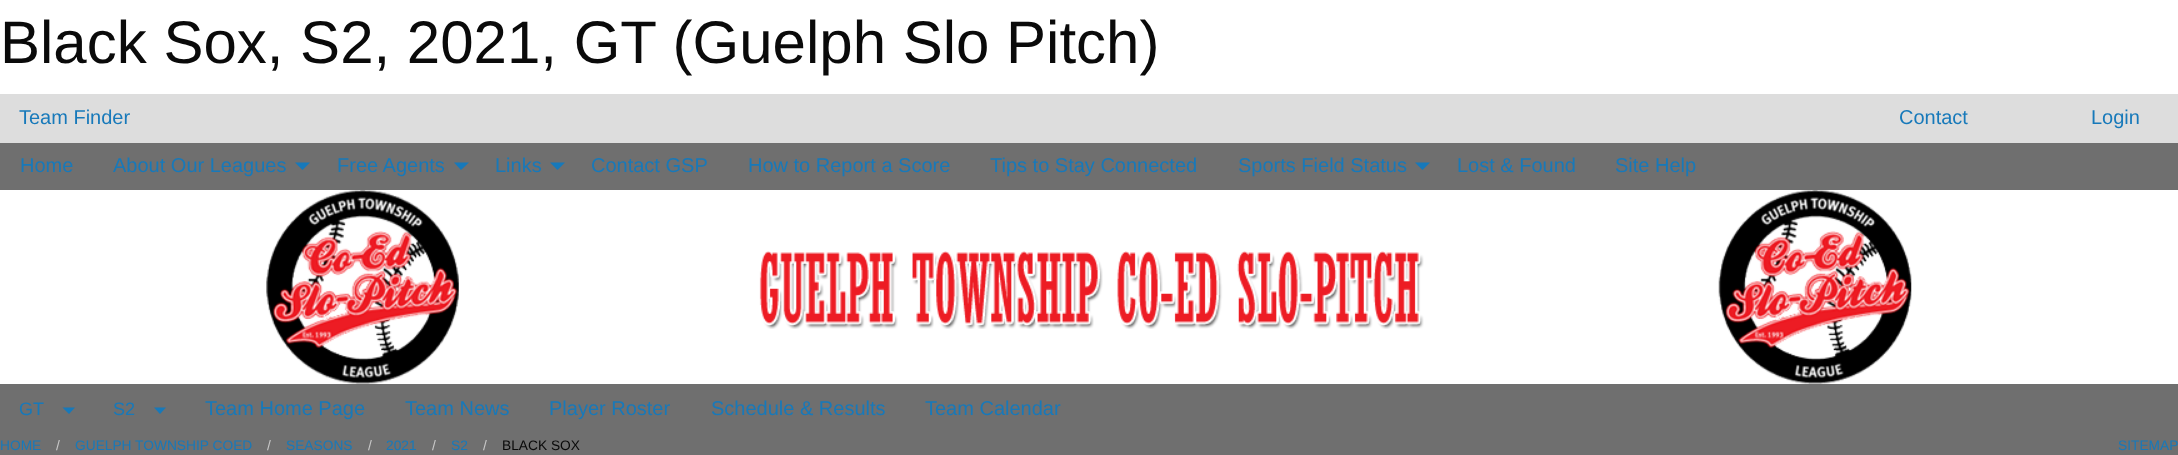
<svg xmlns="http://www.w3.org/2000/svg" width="2178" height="455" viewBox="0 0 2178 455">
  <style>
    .t1 { font: 60px Liberation Sans; fill: #0a0a0a; }
    .t2 { font: 20px Liberation Sans; fill: #1779ba; }
    .t3 { font: 18px Liberation Sans; fill: #1779ba; }
    .t4 { font: 13.75px Liberation Sans; fill: #1779ba; }
    .t5 { font: 13.75px Liberation Sans; fill: #cacaca; }
    .t6 { font: 13.75px Liberation Sans; fill: #0a0a0a; }
  </style>
  <rect width="100%" height="100%" fill="#fff"/>
  <text x="0" y="63" class="t1">Black Sox, S2, 2021, GT (Guelph Slo Pitch)</text>
  <rect x="0" y="94" width="2178" height="49" fill="#ddd"/>
  <text x="19" y="124" class="t2">Team Finder</text>
  <text x="1899" y="124" class="t2">Contact</text>
  <text x="2091" y="124" class="t2">Login</text>
  <rect x="0" y="143" width="2178" height="312" fill="#6f6f6f"/>
  <text x="20" y="172" class="t2">Home</text>
  <text x="113" y="172" class="t2">About Our Leagues</text>
  <path d="M295 162.5H310L302.5 170Z" fill="#1779ba"/>
  <text x="337" y="172" class="t2">Free Agents</text>
  <path d="M454 162.5H469L461 170Z" fill="#1779ba"/>
  <text x="495" y="172" class="t2">Links</text>
  <path d="M550 162.5H565L557.5 170Z" fill="#1779ba"/>
  <text x="591" y="172" class="t2">Contact GSP</text>
  <text x="748" y="172" class="t2">How to Report a Score</text>
  <text x="990" y="172" class="t2">Tips to Stay Connected</text>
  <text x="1238" y="172" class="t2">Sports Field Status</text>
  <path d="M1415 162.5H1430L1422.5 170Z" fill="#1779ba"/>
  <text x="1457" y="172" class="t2">Lost &amp; Found</text>
  <text x="1615" y="172" class="t2">Site Help</text>
  <rect x="0" y="190" width="2178" height="194" fill="#fff"/>
  <image x="266" y="190" width="193" height="194" href="images/1.png"/>
  <image x="759" y="251" width="665" height="78" href="images/2.png"/>
  <image x="1718" y="190" width="194" height="194" href="images/3.png"/>
  <text x="19" y="415" class="t3">GT</text>
  <path d="M62.5 407.5H75L69 414Z" fill="#1779ba"/>
  <text x="113" y="415" class="t3">S2</text>
  <path d="M154 407.5H166L160 414Z" fill="#1779ba"/>
  <text x="205" y="415" class="t2">Team Home Page</text>
  <text x="405" y="415" class="t2">Team News</text>
  <text x="549" y="415" class="t2">Player Roster</text>
  <text x="711" y="415" class="t2">Schedule &amp; Results</text>
  <text x="925" y="415" class="t2">Team Calendar</text>
  <text x="0" y="450" class="t4">HOME</text>
  <text x="56" y="450" class="t5">/</text>
  <text x="75" y="450" class="t4">GUELPH TOWNSHIP COED</text>
  <text x="267" y="450" class="t5">/</text>
  <text x="286" y="450" class="t4">SEASONS</text>
  <text x="368" y="450" class="t5">/</text>
  <text x="386" y="450" class="t4">2021</text>
  <text x="432" y="450" class="t5">/</text>
  <text x="451" y="450" class="t4">S2</text>
  <text x="483" y="450" class="t5">/</text>
  <text x="502" y="450" class="t6">BLACK SOX</text>
  <text x="2118" y="450" class="t4">SITEMAP</text>
</svg>
